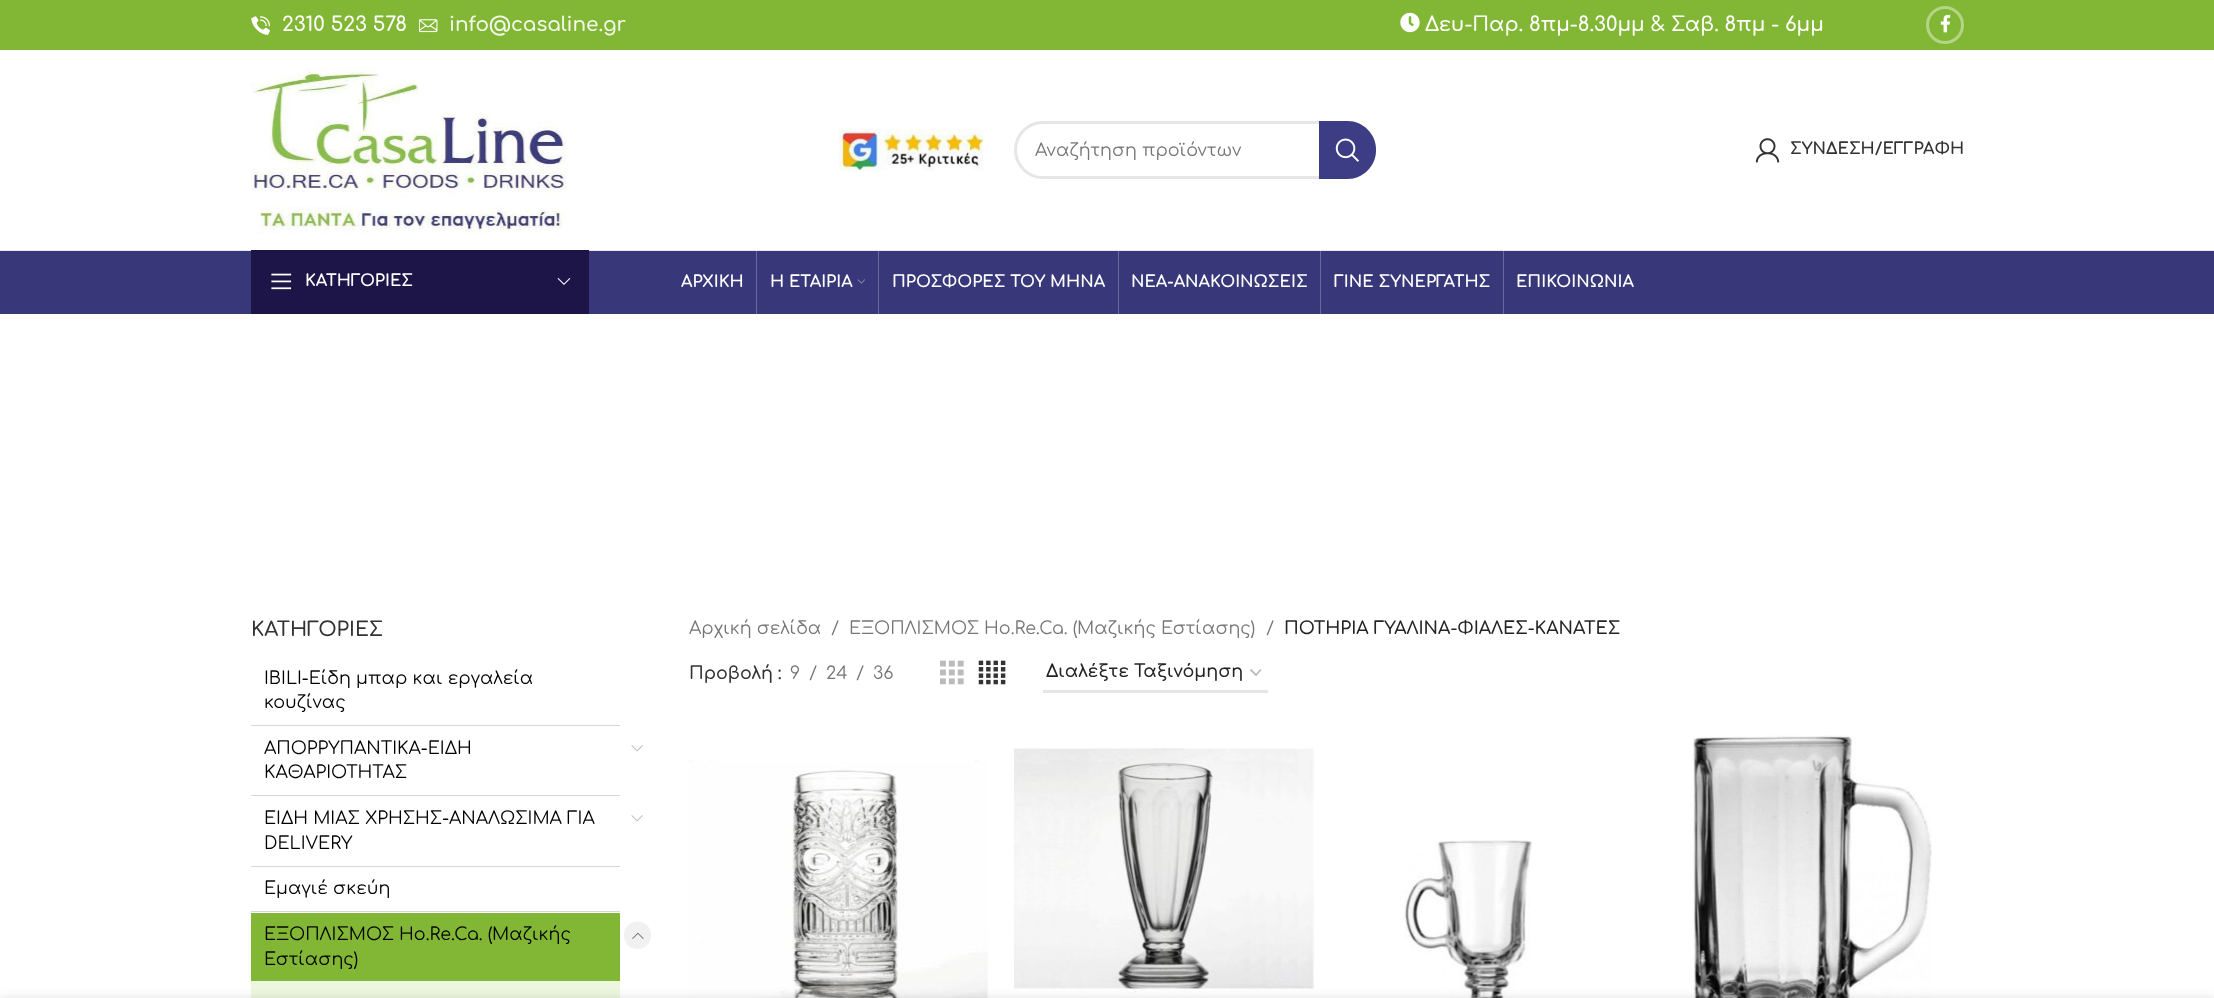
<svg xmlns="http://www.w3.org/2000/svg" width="2214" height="998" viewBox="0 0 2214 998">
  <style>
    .t1 { font: 600 20px Comfortaa; fill: #fff; }
    .t2 { font: 600 20px Comfortaa; fill: #f3f8eb; }
    .t3 { font: 17.5px Comfortaa; fill: #767676; }
    .t4 { font: bold 16.25px Comfortaa; fill: #333; }
    .t5 { font: bold 16.25px Comfortaa; fill: #fff; }
    .t6 { font: 600 20px Comfortaa; fill: #333; }
    .t7 { font: 17.5px Comfortaa; fill: #000; }
    .t8 { font: 600 17.5px Comfortaa; fill: #242424; }
    .t9 { font: 600 17.5px Comfortaa; fill: #333; }
  </style>
  <defs>
    <clipPath id="clip1"><rect x="1045" y="663" width="198" height="21"/></clipPath>
  </defs>
  <rect width="100%" height="100%" fill="#fff"/>
  <rect x="0" y="0" width="2214" height="50" fill="#82b735"/>
  <image x="251" y="16" width="19" height="19" href="images/1.png"/>
  <text x="282" y="31" class="t1">2310 523 578</text>
  <image x="419" y="19" width="19" height="14" href="images/2.png"/>
  <text x="449" y="31" class="t2">info@casaline.gr</text>
  <image x="1400" y="12" width="20" height="21" href="images/3.png"/>
  <text x="1425" y="31" class="t1">Δευ-Παρ. 8πμ-8.30μμ &amp; Σαβ. 8πμ - 6μμ</text>
  <circle cx="1945" cy="25" r="17.5" fill="none" stroke="#b4d486" stroke-width="3"/>
  <image x="1940" y="14" width="11" height="19" href="images/4.png"/>
  <rect x="0" y="250" width="2214" height="1" fill="#e6e6e6"/>
  <image x="251" y="67" width="316" height="167" href="images/5.png"/>
  <image x="838" y="128" width="146" height="44" href="images/6.png"/>
  <rect x="1015.5" y="122.5" width="359" height="55" rx="27.5" fill="none" stroke="#e6e6e6" stroke-width="3"/>
  <text x="1035" y="156" class="t3">Αναζήτηση προϊόντων</text>
  <path d="M1319 121H1347.5C1363 121 1376 134 1376 149.5V150.5C1376 166 1363 179 1347.5 179H1319Z" fill="#3d3d85"/>
  <image x="1335" y="138" width="24" height="24" href="images/7.png"/>
  <image x="1755" y="138" width="25" height="25" href="images/8.png"/>
  <text x="1790" y="154" class="t4">ΣΥΝΔΕΣΗ/ΕΓΓΡΑΦΗ</text>
  <rect x="0" y="251" width="2214" height="63" fill="#373779"/>
  <rect x="251" y="250" width="338" height="64" fill="#1d1448"/>
  <image x="271" y="273" width="21" height="17" href="images/9.png"/>
  <text x="305" y="286" class="t5">ΚΑΤΗΓΟΡΙΕΣ</text>
  <image x="557" y="278" width="14" height="7" href="images/10.png"/>
  <text x="681" y="287" class="t5">ΑΡΧΙΚΗ</text>
  <rect x="756" y="251" width="1" height="63" fill="#69699b"/>
  <text x="770" y="287" class="t5">Η ΕΤΑΙΡΙΑ</text>
  <image x="857" y="279" width="8" height="5" href="images/11.png"/>
  <rect x="878" y="251" width="1" height="63" fill="#69699b"/>
  <text x="892" y="287" class="t5">ΠΡΟΣΦΟΡΕΣ ΤΟΥ ΜΗΝΑ</text>
  <rect x="1118" y="251" width="1" height="63" fill="#69699b"/>
  <text x="1131" y="287" class="t5">NEA-ΑΝΑΚΟΙΝΩΣΕΙΣ</text>
  <rect x="1320" y="251" width="1" height="63" fill="#69699b"/>
  <text x="1334" y="287" class="t5">ΓΙΝΕ ΣΥΝΕΡΓΑΤΗΣ</text>
  <rect x="1503" y="251" width="1" height="63" fill="#69699b"/>
  <text x="1516" y="287" class="t5">ΕΠΙΚΟΙΝΩΝΙΑ</text>
  <text x="251" y="636" class="t6">ΚΑΤΗΓΟΡΙΕΣ</text>
  <rect x="251" y="725" width="369" height="1" fill="#d5d6e0"/>
  <text x="264" y="684" class="t7">IBILI-Είδη μπαρ και εργαλεία</text>
  <text x="264" y="708" class="t7">κουζίνας</text>
  <rect x="251" y="795" width="369" height="1" fill="#d5d6e0"/>
  <text x="264" y="754" class="t7">ΑΠΟΡΡΥΠΑΝΤΙΚΑ-ΕΙΔΗ</text>
  <text x="264" y="778" class="t7">ΚΑΘΑΡΙΟΤΗΤΑΣ</text>
  <image x="631" y="745" width="12" height="7" href="images/12.png"/>
  <rect x="251" y="866" width="369" height="1" fill="#d5d6e0"/>
  <text x="264" y="824" class="t7">ΕΙΔΗ ΜΙΑΣ ΧΡΗΣΗΣ-ΑΝΑΛΩΣΙΜΑ ΓΙΑ</text>
  <text x="264" y="849" class="t7">DELIVERY</text>
  <image x="631" y="815" width="12" height="7" href="images/12.png"/>
  <rect x="251" y="911" width="369" height="1" fill="#d5d6e0"/>
  <text x="264" y="894" class="t7">Εμαγιέ σκεύη</text>
  <rect x="251" y="913" width="369" height="68" fill="#82b735"/>
  <text x="264" y="940" class="t7">ΕΞΟΠΛΙΣΜΟΣ Hο.Re.Ca. (Μαζικής</text>
  <text x="264" y="965" class="t7">Εστίασης)</text>
  <path d="M637.5 949C619.5 949 619.5 921.5 637.5 921.5C655.5 921.5 655.5 949 637.5 949Z" fill="#f1f1f1"/>
  <image x="632" y="932" width="12" height="7" href="images/13.png"/>
  <rect x="251" y="981" width="369" height="17" fill="#edf7df"/>
  <text x="689" y="634" class="t3">Αρχική σελίδα</text>
  <text x="831" y="634" class="t3">/</text>
  <text x="849" y="634" class="t3">ΕΞΟΠΛΙΣΜΟΣ Hο.Re.Ca. (Μαζικής Εστίασης)</text>
  <text x="1266" y="634" class="t3">/</text>
  <text x="1284" y="634" class="t8">ΠΟΤΗΡΙΑ ΓΥΑΛΙΝΑ-ΦΙΑΛΕΣ-ΚΑΝΑΤΕΣ</text>
  <text x="689" y="679" class="t9">Προβολή :</text>
  <text x="790" y="679" class="t3">9</text>
  <text x="809" y="679" class="t3">/</text>
  <text x="826" y="679" class="t3">24</text>
  <text x="856" y="679" class="t3">/</text>
  <text x="873" y="679" class="t3">36</text>
  <image x="940" y="660" width="24" height="25" href="images/14.png"/>
  <image x="978" y="660" width="28" height="25" href="images/15.png"/>
  <path d="M1250.5 669.5L1256 675L1261 669.5" fill="none" stroke="#bbb" stroke-width="1.8"/>
  <rect x="1043" y="690" width="225" height="3" fill="#e6e6e6"/>
  <g clip-path="url(#clip1)">
    <text x="1046" y="677" class="t8">Διαλέξτε Ταξινόμηση</text>
  </g>
  <image x="689" y="760" width="299" height="238" href="images/16.png"/>
  <image x="1014" y="748" width="300" height="246" href="images/17.png"/>
  <image x="1404" y="840" width="128" height="158" href="images/18.png"/>
  <image x="1691" y="735" width="241" height="263" href="images/19.png"/>
  <rect x="0" y="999" width="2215" height="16" fill="#00000024" filter="blur(5.5px)"/>
</svg>
